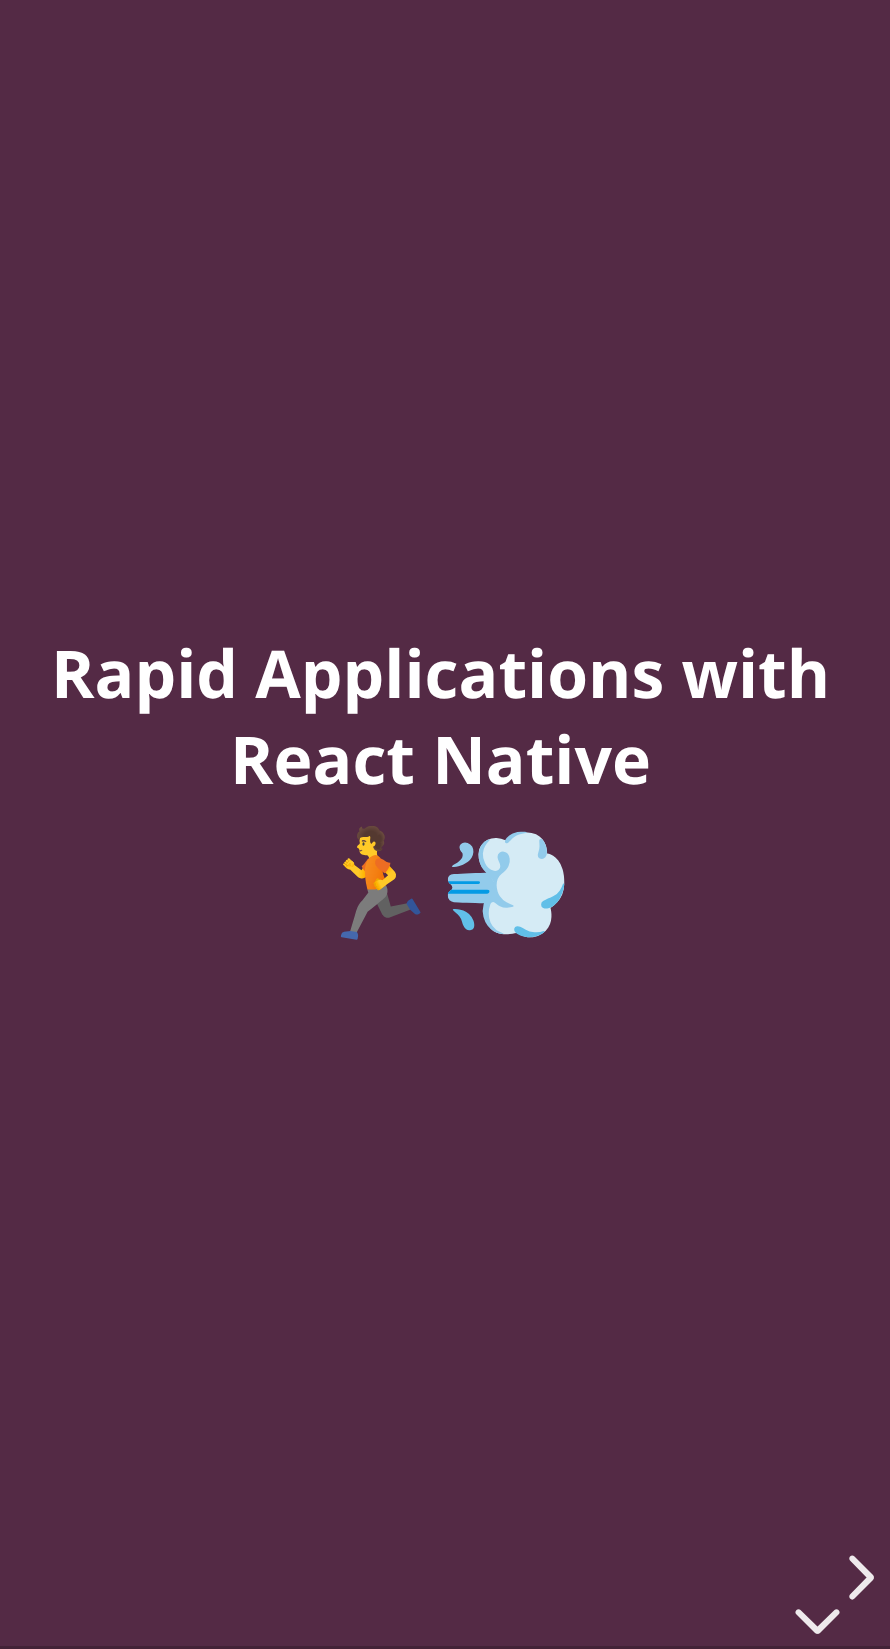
<svg xmlns="http://www.w3.org/2000/svg" width="890" height="1649" viewBox="0 0 890 1649">
  <style>
    .t1 { font: bold 66px Open Sans; fill: #fff; }
    .t2 { font: 106px Noto Color Emoji; fill: #fff; }
  </style>
  <rect width="100%" height="100%" fill="#542a45"/>
  <text x="51" y="698" class="t1">Rapid Applications with</text>
  <text x="230" y="784" class="t1">React Native</text>
  <text x="309" y="921" class="t2">🏃💨</text>
  <path d="M868.5 1579.5L850 1560.5C849 1559.5 849 1557.5 850 1556.5C851.5 1555 853 1555 854.5 1556.5L873 1575C874 1576 874 1578 873 1579.5C872 1580.5 870 1580.5 868.5 1579.5Z" fill="#eeeaec"/>
  <path d="M873 1580L854.5 1598.5C853 1600 851.5 1600 850 1598.5C849 1597.5 849 1595.5 850 1594.5L868.5 1575.5C870 1574.5 872 1574.5 873 1575.5C874 1577 874 1579 873 1580ZM815.5 1628.5L834.5 1610C835.5 1609 837.5 1609 838.5 1610C840 1611.5 840 1613 838.5 1614.5L820 1633C819 1634 817 1634 815.5 1633C814.5 1632 814.5 1630 815.5 1628.5Z" fill="#eeeaec"/>
  <path d="M815 1633L796.5 1614.5C795 1613 795 1611.5 796.5 1610C797.5 1609 799.5 1609 800.5 1610L819.5 1628.5C820.5 1630 820.5 1632 819.5 1633C818 1634 816 1634 815 1633Z" fill="#eeeaec"/>
  <rect x="0" y="1646" width="890" height="3" fill="#432237"/>
</svg>
